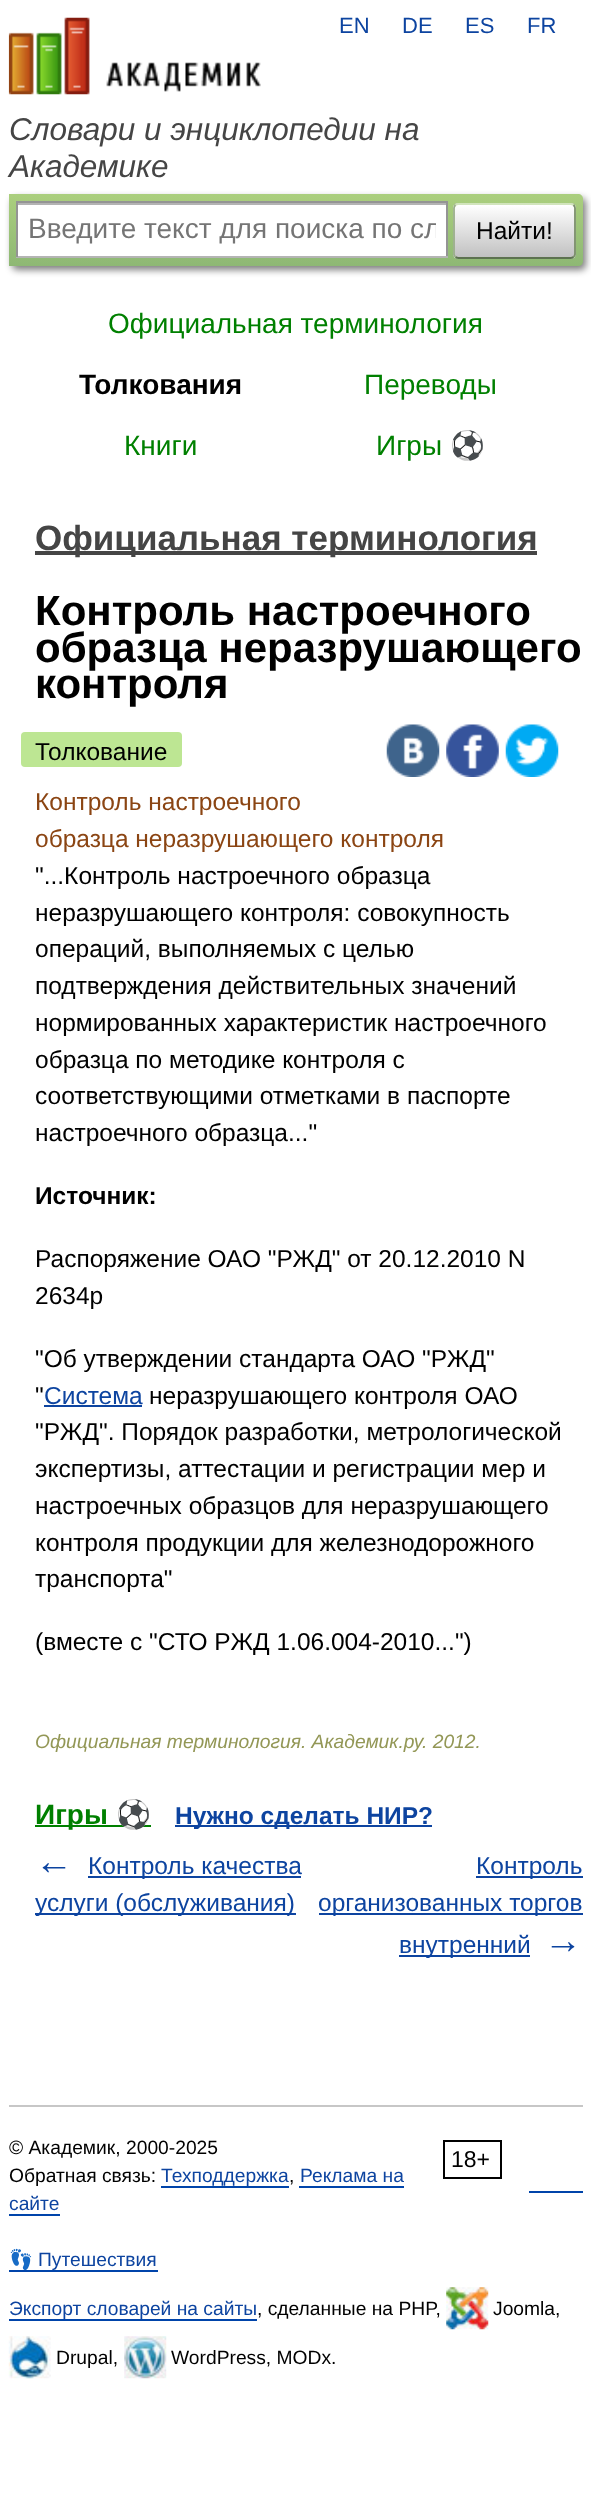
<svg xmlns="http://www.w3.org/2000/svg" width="591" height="2496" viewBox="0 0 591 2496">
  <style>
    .t1 { font: 22px Liberation Sans; fill: #0d44a0; }
    .t2 { font: italic 31.5px Liberation Sans; fill: #454545; }
    .t3 { font: 28px Liberation Sans; fill: #757575; }
    .t4 { font: 24.5px Liberation Sans; fill: #000; }
    .t5 { font: 28px Liberation Sans; fill: #008000; }
    .t6 { font: bold 28px Liberation Sans; fill: #000; }
    .t7 { font: 28px Noto Color Emoji; fill: #008000; }
    .t8 { font: bold 35px Liberation Sans; fill: #454545; }
    .t9 { font: bold 42px Liberation Sans; fill: #000; }
    .t10 { font: 24.5px Liberation Sans; fill: #8b4513; }
    .t11 { font: bold 24.5px Liberation Sans; fill: #000; }
    .t12 { font: 24.5px Liberation Sans; fill: #0d44a0; }
    .t13 { font: italic 19.25px Liberation Sans; fill: #939756; }
    .t14 { font: bold 28px Liberation Sans; fill: #008000; }
    .t15 { font: bold 28px Noto Color Emoji; fill: #008000; }
    .t16 { font: bold 24.5px Liberation Sans; fill: #0d44a0; }
    .t17 { font: bold 38px Liberation Sans; fill: #0d44a0; }
    .t18 { font: 19.25px Liberation Sans; fill: #000; }
    .t19 { font: 23px Liberation Sans; fill: #000; }
    .t20 { font: 19.25px Liberation Sans; fill: #0d44a0; }
    .t21 { font: 19.25px Noto Color Emoji; fill: #0d44a0; }
  </style>
  <defs>
    <linearGradient id="g1" gradientUnits="userSpaceOnUse" x1="296" y1="194" x2="296" y2="266"><stop offset="0" stop-color="#abcf7e"/><stop offset="1" stop-color="#8eb874"/></linearGradient>
    <clipPath id="clip1"><rect x="28" y="214" width="408" height="31"/></clipPath>
    <clipPath id="clip2"><rect x="453" y="203" width="123" height="56" rx="5"/></clipPath>
    <linearGradient id="g2" gradientUnits="userSpaceOnUse" x1="515" y1="152" x2="515" y2="205"><stop offset="0" stop-color="#fff"/><stop offset="1" stop-color="#c1c1c1"/></linearGradient>
    <linearGradient id="g3" gradientUnits="userSpaceOnUse" x1="515" y1="205" x2="515" y2="257"><stop offset="0" stop-color="#fff"/><stop offset="1" stop-color="#c1c1c1"/></linearGradient>
    <linearGradient id="g4" gradientUnits="userSpaceOnUse" x1="515" y1="257" x2="515" y2="310"><stop offset="0" stop-color="#fff"/><stop offset="1" stop-color="#c1c1c1"/></linearGradient>
  </defs>
  <rect width="100%" height="100%" fill="#fff"/>
  <image x="8" y="17" width="253" height="78" href="images/1.png"/>
  <text x="339" y="33" class="t1">EN</text>
  <text x="402" y="33" class="t1">DE</text>
  <text x="465" y="33" class="t1">ES</text>
  <text x="527" y="33" class="t1">FR</text>
  <text x="9" y="140" class="t2">Словари и энциклопедии на</text>
  <text x="9" y="177" class="t2">Академике</text>
  <rect x="12" y="198" width="574" height="72" rx="5" fill="#00000080" filter="blur(3.5px)"/>
  <path d="M9 194H578C581 194 583 196 583 199V261C583 264 581 266 578 266H9Z" fill="url(#g1)"/>
  <rect x="18" y="205" width="428" height="51" fill="#fff"/>
  <rect x="18" y="203" width="428" height="2" fill="#b3b3b3"/>
  <rect x="16" y="201" width="432" height="2" fill="#949494"/>
  <rect x="446" y="201" width="2" height="56" fill="#949494"/>
  <rect x="16" y="256" width="432" height="2" fill="#b4b4b4"/>
  <rect x="16" y="201" width="2" height="56" fill="#949494"/>
  <g clip-path="url(#clip1)">
    <text x="28" y="238" class="t3">Введите текст для поиска по сл</text>
  </g>
  <g clip-path="url(#clip2)">
    <rect x="453" y="203" width="123" height="2" fill="url(#g2)"/>
    <rect x="453" y="205" width="123" height="52" fill="url(#g3)"/>
    <rect x="453" y="257" width="123" height="2" fill="url(#g4)"/>
  </g>
  <path d="M455.5 205C456 204.5 457.5 204 458.5 204H570.5C571.5 204 573 204.5 573.5 205" fill="none" stroke="#d1e4bc" stroke-width="1.8"/>
  <path d="M573.5 205C574.5 206 575 207 575 208V254C575 255 574.5 256 573.5 257" fill="none" stroke="#7a8e69" stroke-width="1.8"/>
  <path d="M573.5 257C573 257.5 571.5 258 570.5 258H458.5C457.5 258 456 257.5 455.5 257" fill="none" stroke="#5d7250" stroke-width="1.8"/>
  <path d="M455.5 257C454.5 256 454 255 454 254V208C454 207 454.5 206 455.5 205" fill="none" stroke="#9aae89" stroke-width="1.8"/>
  <text x="476" y="239" class="t4">Найти!</text>
  <text x="108" y="333" class="t5">Официальная терминология</text>
  <text x="79" y="394" class="t6">Толкования</text>
  <text x="364" y="394" class="t5">Переводы</text>
  <text x="124" y="455" class="t5">Книги</text>
  <text x="376" y="455" class="t5">Игры</text>
  <text x="450" y="455" class="t7">⚽</text>
  <rect x="35" y="551" width="502" height="4" fill="#454545"/>
  <text x="35" y="550" class="t8">Официальная терминология</text>
  <text x="35" y="625" class="t9">Контроль настроечного</text>
  <text x="35" y="662" class="t9">образца неразрушающего</text>
  <text x="35" y="698" class="t9">контроля</text>
  <rect x="21" y="732" width="161" height="35" rx="4" fill="#bde693"/>
  <text x="35" y="760" class="t4">Толкование</text>
  <image x="386" y="724" width="54" height="53" href="images/2.png"/>
  <image x="446" y="724" width="53" height="53" href="images/3.png"/>
  <image x="505" y="724" width="54" height="53" href="images/4.png"/>
  <text x="35" y="810" class="t10">Контроль настроечного</text>
  <text x="35" y="847" class="t10">образца неразрушающего контроля</text>
  <text x="35" y="884" class="t4">"...Контроль настроечного образца</text>
  <text x="35" y="921" class="t4">неразрушающего контроля: совокупность</text>
  <text x="35" y="957" class="t4">операций, выполняемых с целью</text>
  <text x="35" y="994" class="t4">подтверждения действительных значений</text>
  <text x="35" y="1031" class="t4">нормированных характеристик настроечного</text>
  <text x="35" y="1068" class="t4">образца по методике контроля с</text>
  <text x="35" y="1104" class="t4">соответствующими отметками в паспорте</text>
  <text x="35" y="1141" class="t4">настроечного образца..."</text>
  <text x="35" y="1204" class="t11">Источник:</text>
  <text x="35" y="1267" class="t4">Распоряжение ОАО "РЖД" от 20.12.2010 N</text>
  <text x="35" y="1304" class="t4">2634р</text>
  <text x="35" y="1367" class="t4">"Об утверждении стандарта ОАО "РЖД"</text>
  <text x="35" y="1404" class="t4">"</text>
  <text x="44" y="1404" class="t12">Система</text>
  <rect x="44" y="1405" width="98" height="2" fill="#0d44a0"/>
  <text x="149" y="1404" class="t4">неразрушающего контроля ОАО</text>
  <text x="35" y="1440" class="t4">"РЖД". Порядок разработки, метрологической</text>
  <text x="35" y="1477" class="t4">экспертизы, аттестации и регистрации мер и</text>
  <text x="35" y="1514" class="t4">настроечных образцов для неразрушающего</text>
  <text x="35" y="1551" class="t4">контроля продукции для железнодорожного</text>
  <text x="35" y="1587" class="t4">транспорта"</text>
  <text x="35" y="1650" class="t4">(вместе с "СТО РЖД 1.06.004-2010...")</text>
  <text x="35" y="1748" class="t13">Официальная терминология. Академик.ру</text>
  <text x="422" y="1748" class="t13">. 2012.</text>
  <rect x="35" y="1825" width="116" height="2" fill="#008000"/>
  <text x="35" y="1824" class="t14">Игры</text>
  <text x="116" y="1824" class="t15">⚽</text>
  <rect x="175" y="1825" width="257" height="2" fill="#0d44a0"/>
  <text x="175" y="1824" class="t16">Нужно сделать НИР?</text>
  <text x="35" y="1874" class="t17">←</text>
  <rect x="88" y="1876" width="213" height="2" fill="#0d44a0"/>
  <text x="88" y="1874" class="t12">Контроль качества</text>
  <rect x="35" y="1913" width="261" height="2" fill="#0d44a0"/>
  <text x="35" y="1911" class="t12">услуги (обслуживания)</text>
  <rect x="476" y="1876" width="107" height="2" fill="#0d44a0"/>
  <text x="476" y="1874" class="t12">Контроль</text>
  <rect x="319" y="1913" width="264" height="2" fill="#0d44a0"/>
  <text x="318" y="1911" class="t12">организованных торгов</text>
  <rect x="399" y="1955" width="131" height="2" fill="#0d44a0"/>
  <text x="399" y="1953" class="t12">внутренний</text>
  <text x="544" y="1953" class="t17">→</text>
  <rect x="9" y="2105" width="574" height="2" fill="#c7c7c7"/>
  <text x="9" y="2154" class="t18">© Академик, 2000-2025</text>
  <rect x="444" y="2141" width="57" height="37" fill="none" stroke="#000" stroke-width="2"/>
  <text x="451" y="2167" class="t19">18+</text>
  <text x="9" y="2182" class="t18">Обратная связь:</text>
  <text x="161" y="2182" class="t20">Техподдержка</text>
  <rect x="161" y="2186" width="128" height="2" fill="#04a"/>
  <text x="289" y="2182" class="t18">,</text>
  <text x="300" y="2182" class="t20">Реклама на</text>
  <rect x="299" y="2186" width="105" height="2" fill="#04a"/>
  <text x="9" y="2210" class="t20">сайте</text>
  <rect x="9" y="2214" width="51" height="2" fill="#04a"/>
  <rect x="529" y="2191" width="54" height="2" fill="#04a"/>
  <text x="9" y="2266" class="t21">👣</text>
  <text x="38" y="2266" class="t20">Путешествия</text>
  <rect x="9" y="2270" width="149" height="2" fill="#04a"/>
  <text x="9" y="2315" class="t20">Экспорт словарей на сайты</text>
  <rect x="9" y="2319" width="248" height="2" fill="#04a"/>
  <text x="257" y="2315" class="t18">, сделанные на PHP,</text>
  <image x="446" y="2287" width="43" height="43" href="images/5.png"/>
  <text x="493" y="2315" class="t18">Joomla,</text>
  <image x="8" y="2336" width="43" height="43" href="images/6.png"/>
  <text x="56" y="2364" class="t18">Drupal,</text>
  <image x="124" y="2336" width="43" height="43" href="images/7.png"/>
  <text x="171" y="2364" class="t18">WordPress, MODx.</text>
</svg>
